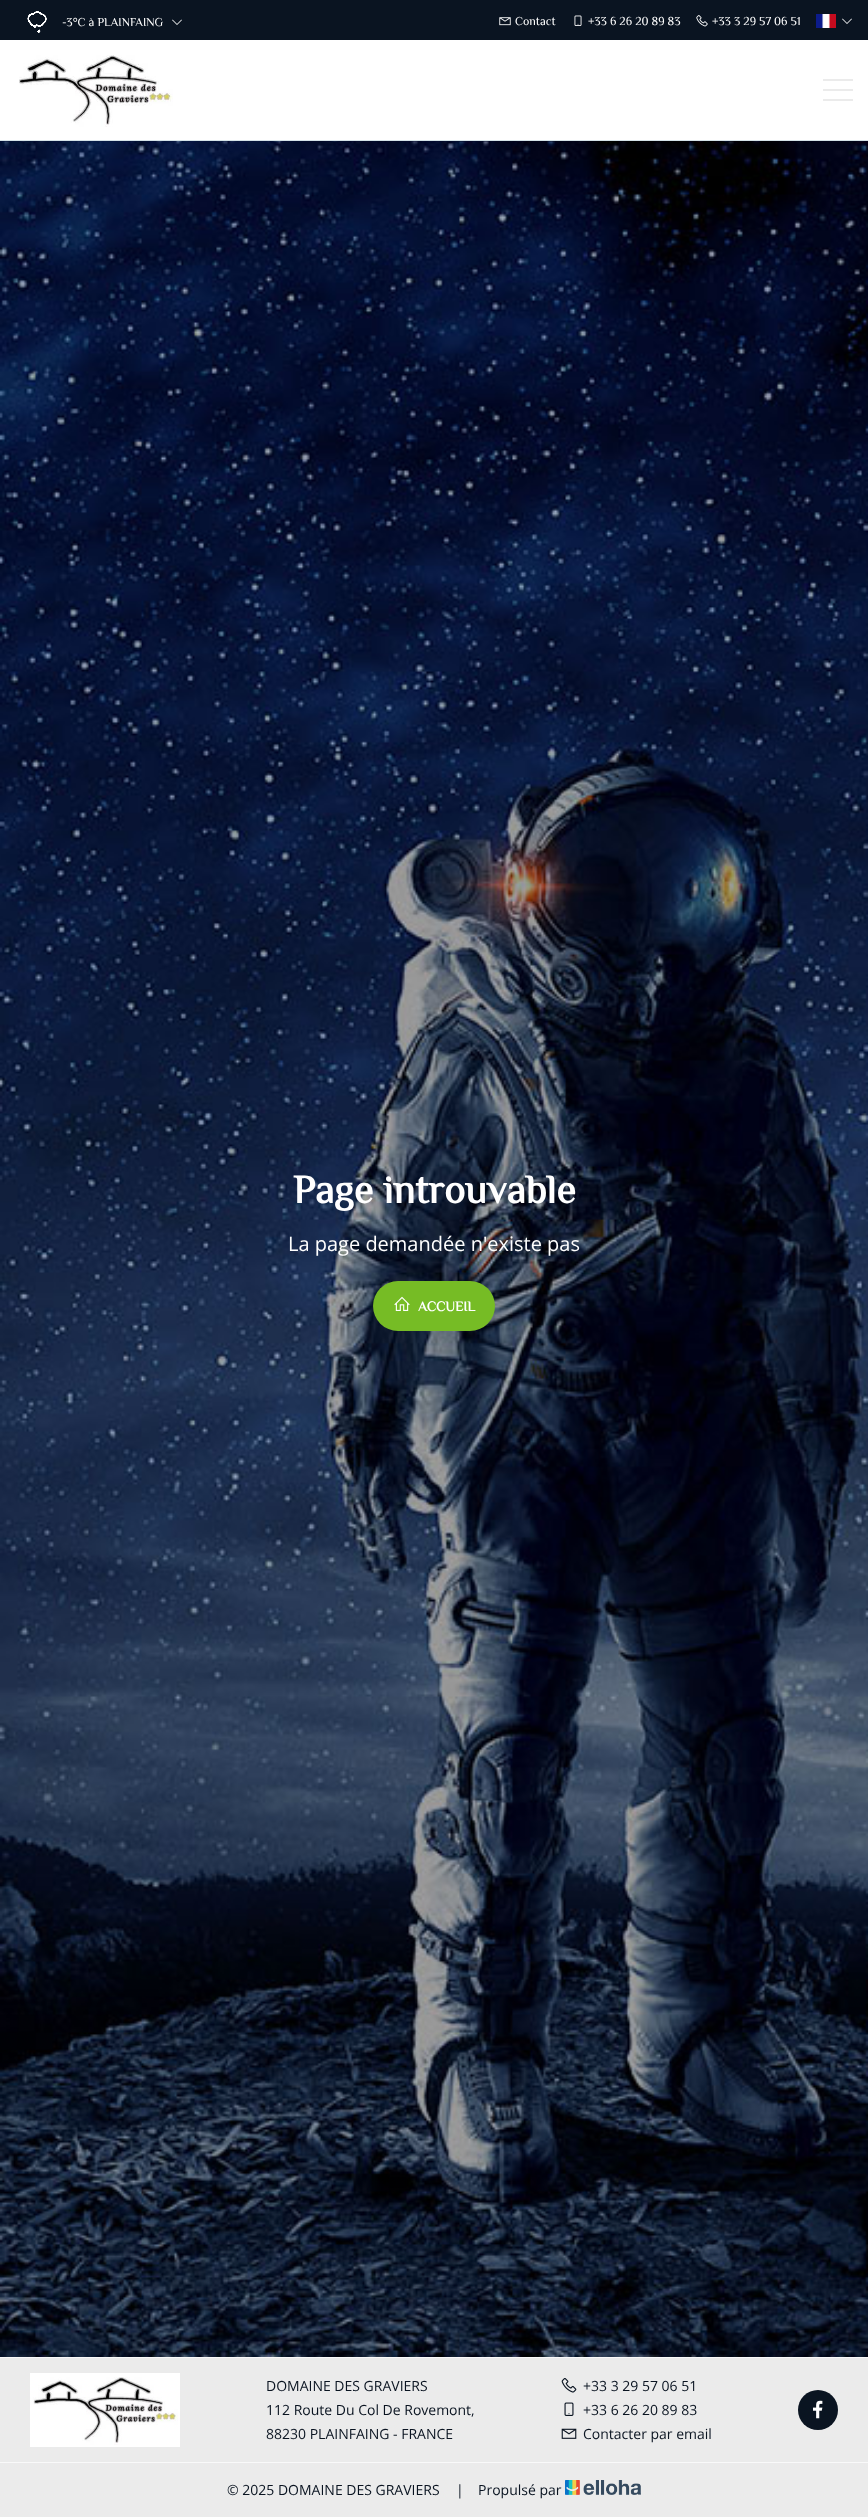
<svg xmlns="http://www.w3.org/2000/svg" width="868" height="2517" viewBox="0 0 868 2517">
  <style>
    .t1 { font: 12px Philosopher; fill: #fff; }
    .t2 { font: bold 40px Philosopher; fill: #fff; }
    .t3 { font: 20px Open Sans; fill: #fff; }
    .t4 { font: bold 14px Philosopher; fill: #fff; }
    .t5 { font: 14px Open Sans; fill: #0a1421; }
  </style>
  <rect width="100%" height="100%" fill="#fff"/>
  <rect x="0" y="0" width="868" height="40" fill="#0a1421"/>
  <image x="27" y="11" width="20" height="22" href="images/1.png"/>
  <text x="62" y="26" class="t1">-3°C à PLAINFAING</text>
  <image x="172" y="19" width="10" height="6" href="images/2.png"/>
  <image x="499" y="17" width="12" height="9" href="images/3.png"/>
  <text x="515" y="25" class="t1">Contact</text>
  <image x="574" y="15" width="8" height="11" href="images/4.png"/>
  <text x="588" y="25" class="t1">+33 6 26 20 89 83</text>
  <image x="696" y="15" width="12" height="12" href="images/5.png"/>
  <text x="712" y="25" class="t1">+33 3 29 57 06 51</text>
  <image x="816" y="14" width="20" height="14" href="images/6.png"/>
  <image x="842" y="18" width="10" height="6" href="images/2.png"/>
  <rect x="0" y="140" width="868" height="1" fill="#d5e3e8"/>
  <image x="19" y="55" width="154" height="72" href="images/7.png"/>
  <rect x="823" y="89" width="30" height="2" fill="#ebebeb"/>
  <rect x="823" y="79" width="30" height="2" fill="#ebebeb"/>
  <rect x="823" y="99" width="30" height="2" fill="#ebebeb"/>
  <image x="0" y="141" width="868" height="2216" href="images/8.png"/>
  <text x="293" y="1203" class="t2">Page introuvable</text>
  <text x="288" y="1251" class="t3">La page demandée n'existe pas</text>
  <rect x="373" y="1281" width="122" height="50" rx="25" fill="#76bc25"/>
  <image x="394" y="1296" width="16" height="15" href="images/9.png"/>
  <text x="418" y="1311" class="t4">ACCUEIL</text>
  <rect x="0" y="2358" width="868" height="104" fill="#ebebeb"/>
  <rect x="0" y="2357" width="868" height="1" fill="#f9f9f9"/>
  <rect x="0" y="2462" width="868" height="1" fill="#f9f9f9"/>
  <image x="30" y="2373" width="150" height="74" href="images/10.png"/>
  <text x="266" y="2391" class="t5">DOMAINE DES GRAVIERS</text>
  <text x="266" y="2415" class="t5">112 Route Du Col De Rovemont,</text>
  <text x="266" y="2439" class="t5">88230 PLAINFAING - FRANCE</text>
  <image x="561" y="2378" width="16" height="15" href="images/11.png"/>
  <text x="583" y="2391" class="t5">+33 3 29 57 06 51</text>
  <image x="564" y="2402" width="10" height="14" href="images/12.png"/>
  <text x="583" y="2415" class="t5">+33 6 26 20 89 83</text>
  <image x="561" y="2428" width="16" height="11" href="images/13.png"/>
  <text x="583" y="2439" class="t5">Contacter par email</text>
  <circle cx="818" cy="2410" r="20" fill="#0a1421"/>
  <image x="813" y="2400" width="10" height="19" href="images/14.png"/>
  <rect x="0" y="2463" width="868" height="54" fill="#ebebeb"/>
  <text x="227" y="2495" class="t5">© 2025 DOMAINE DES GRAVIERS</text>
  <text x="456" y="2495" class="t5">|</text>
  <text x="478" y="2495" class="t5">Propulsé par</text>
  <image x="565" y="2480" width="76" height="15" href="images/15.png"/>
</svg>
